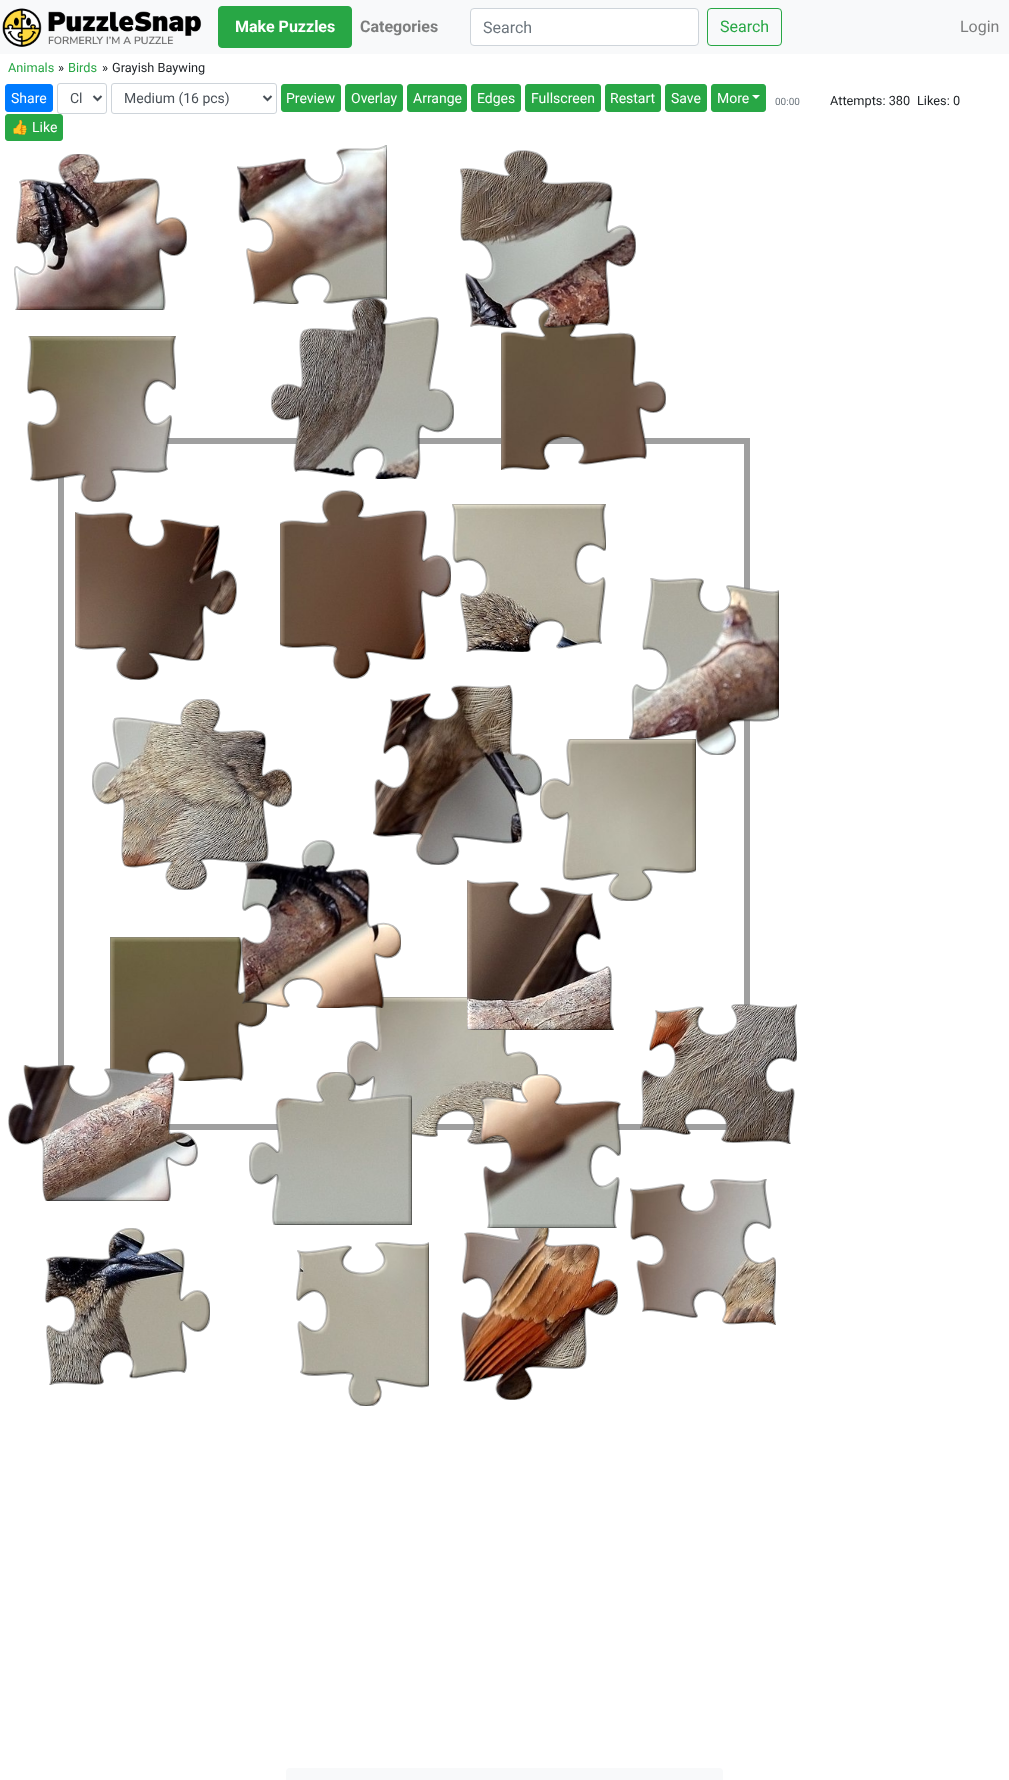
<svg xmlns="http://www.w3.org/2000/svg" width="1009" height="1780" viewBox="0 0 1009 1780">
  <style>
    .t1 { font: bold 16px Roboto; fill: #fff; }
    .t2 { font: bold 16px Roboto; fill: #7c7d7d; }
    .t3 { font: 16px Roboto; fill: #6c757d; }
    .t4 { font: 16px Roboto; fill: #28a745; }
    .t5 { font: 16px Roboto; fill: #7c7d7d; }
    .t6 { font: 12.75px Roboto; fill: #28a745; }
    .t7 { font: 12.75px Roboto; fill: #212529; }
    .t8 { font: 14px Roboto; fill: #fff; }
    .t9 { font: 14px Roboto; fill: #495057; }
    .t10 { font: 10px Roboto; fill: #6c757d; }
    .t11 { font: 14px Noto Color Emoji; fill: #fff; }
  </style>
  <rect width="100%" height="100%" fill="#fff"/>
  <rect x="0" y="0" width="1009" height="54" fill="#f8f9fa"/>
  <image x="2" y="8" width="200" height="39" href="images/1.png"/>
  <rect x="218.5" y="6.5" width="133" height="41" rx="3.5" fill="#28a745" stroke="#28a745"/>
  <text x="235" y="32" class="t1">Make Puzzles</text>
  <text x="360" y="32" class="t2">Categories</text>
  <rect x="470.5" y="8.5" width="228" height="37" rx="3.5" fill="#fff" stroke="#ced4da"/>
  <text x="483" y="33" class="t3">Search</text>
  <rect x="707.5" y="8.5" width="74" height="37" rx="3.5" fill="none" stroke="#28a745"/>
  <text x="720" y="32" class="t4">Search</text>
  <text x="960" y="32" class="t5">Login</text>
  <text x="8" y="72" class="t6">Animals</text>
  <text x="58" y="72" class="t7">»</text>
  <text x="68" y="72" class="t6">Birds</text>
  <text x="102" y="72" class="t7">»</text>
  <text x="112" y="72" class="t7">Grayish Baywing</text>
  <rect x="5.5" y="84.5" width="47" height="27" rx="2.5" fill="#007bff" stroke="#007bff"/>
  <text x="11" y="103" class="t8">Share</text>
  <rect x="57.5" y="83.5" width="49" height="30" rx="2.5" fill="none" stroke="#ced4da"/>
  <path d="M93.5 96L97.5 100L101.5 96" fill="none" stroke="#495057" stroke-width="2"/>
  <text x="70" y="103" class="t9">Cl</text>
  <rect x="111.5" y="83.5" width="165" height="30" rx="2.5" fill="none" stroke="#ced4da"/>
  <path d="M263.5 96L267.5 100L271.5 96" fill="none" stroke="#495057" stroke-width="2"/>
  <text x="124" y="103" class="t9">Medium (16 pcs)</text>
  <rect x="281.5" y="84.5" width="59" height="27" rx="2.5" fill="#28a745" stroke="#28a745"/>
  <text x="286" y="103" class="t8">Preview</text>
  <rect x="345.5" y="84.5" width="57" height="27" rx="2.5" fill="#28a745" stroke="#28a745"/>
  <text x="351" y="103" class="t8">Overlay</text>
  <rect x="407.5" y="84.5" width="59" height="27" rx="2.5" fill="#28a745" stroke="#28a745"/>
  <text x="413" y="103" class="t8">Arrange</text>
  <rect x="471.5" y="84.5" width="49" height="27" rx="2.5" fill="#28a745" stroke="#28a745"/>
  <text x="477" y="103" class="t8">Edges</text>
  <rect x="525.5" y="84.5" width="75" height="27" rx="2.5" fill="#28a745" stroke="#28a745"/>
  <text x="531" y="103" class="t8">Fullscreen</text>
  <rect x="605.5" y="84.5" width="55" height="27" rx="2.5" fill="#28a745" stroke="#28a745"/>
  <text x="610" y="103" class="t8">Restart</text>
  <rect x="665.5" y="84.5" width="41" height="27" rx="2.5" fill="#28a745" stroke="#28a745"/>
  <text x="671" y="103" class="t8">Save</text>
  <rect x="711.5" y="84.5" width="54" height="27" rx="2.5" fill="#28a745" stroke="#28a745"/>
  <text x="717" y="103" class="t8">More</text>
  <path d="M752 95H760L756 99Z" fill="#fff"/>
  <text x="775" y="105" class="t10">00:00</text>
  <text x="830" y="105" class="t7">Attempts: 380</text>
  <text x="917" y="105" class="t7">Likes: 0</text>
  <rect x="5.5" y="114.5" width="57" height="26" rx="2.5" fill="#28a745" stroke="#28a745"/>
  <text x="11" y="132" class="t11">👍</text>
  <text x="32" y="132" class="t8">Like</text>
  <image x="8" y="145" width="789" height="1261" href="images/2.png"/>
  <rect x="286" y="1768" width="437" height="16" rx="4" fill="#f8f9fa"/>
</svg>
